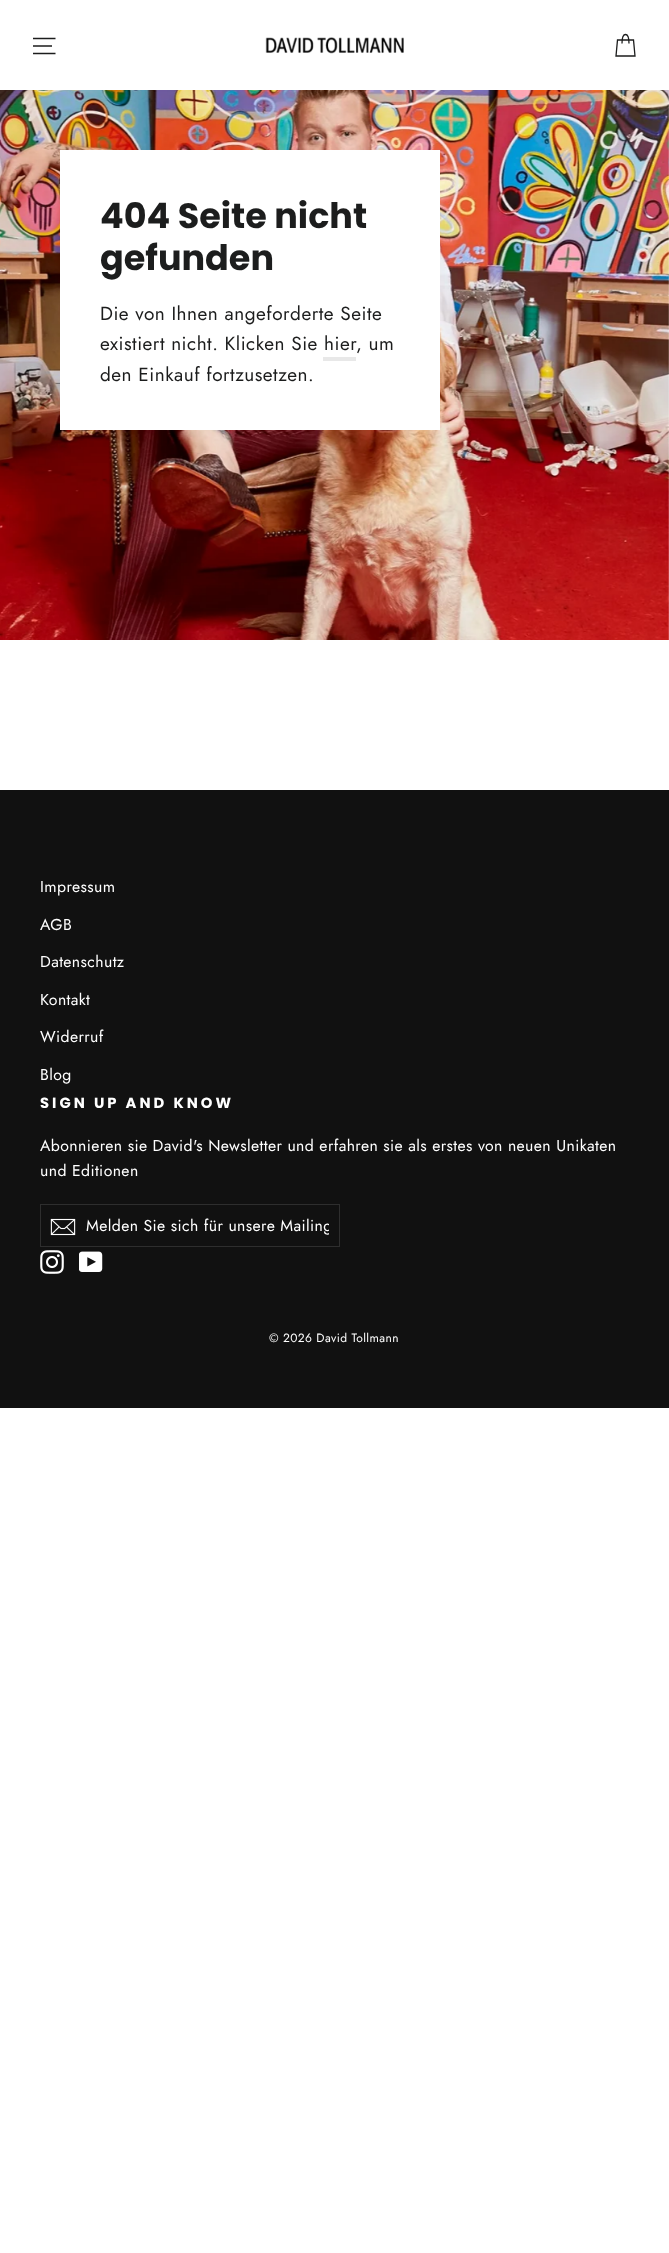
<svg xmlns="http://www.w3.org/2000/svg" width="669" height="2253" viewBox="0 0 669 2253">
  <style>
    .t1 { font: bold 35px Poppins; fill: #1c1d1d; }
    .t2 { font: 19px Jost; letter-spacing: 0.5px; fill: #1c1d1d; }
    .t3 { font: 15.8px Jost; letter-spacing: 0.4px; fill: #fff; }
    .t4 { font: bold 14.75px Poppins; letter-spacing: 3px; fill: #fff; }
    .t5 { font: 12px Jost; letter-spacing: 0.4px; fill: #fff; }
  </style>
  <defs>
    <clipPath id="clip1"><rect x="86" y="1214" width="243" height="23"/></clipPath>
  </defs>
  <rect width="100%" height="100%" fill="#fff"/>
  <path d="M33 38.5H55.5M33 46H52M33 53.5H55.5" fill="none" stroke="#1c1d1d" stroke-width="1.3"/>
  <image x="265" y="37" width="139" height="17" href="images/1.png"/>
  <path d="M622 43.5C622 31.5 629 31.5 629 43.5M617.5 40H633.5L635 56H616Z" fill="none" stroke="#1c1d1d" stroke-width="1.3"/>
  <image x="0" y="90" width="669" height="550" href="images/2.png"/>
  <rect x="60" y="150" width="380" height="280" fill="#fff"/>
  <text x="100" y="228" class="t1">404 Seite nicht</text>
  <text x="100" y="270" class="t1">gefunden</text>
  <text x="100" y="320" class="t2">Die von Ihnen angeforderte Seite</text>
  <text x="100" y="350" class="t2">existiert nicht. Klicken Sie hier</text>
  <text x="356" y="350" class="t2">, um</text>
  <rect x="323" y="357" width="33" height="4" fill="#e8e8e8"/>
  <text x="100" y="381" class="t2">den Einkauf fortzusetzen.</text>
  <rect x="0" y="790" width="669" height="618" fill="#111"/>
  <text x="40" y="892" class="t3">Impressum</text>
  <text x="40" y="930" class="t3">AGB</text>
  <text x="40" y="967" class="t3">Datenschutz</text>
  <text x="40" y="1005" class="t3">Kontakt</text>
  <text x="40" y="1042" class="t3">Widerruf</text>
  <text x="40" y="1080" class="t3">Blog</text>
  <text x="40" y="1108" class="t4">SIGN UP AND KNOW</text>
  <text x="40" y="1151" class="t3">Abonnieren sie David's Newsletter und erfahren sie als erstes von neuen Unikaten</text>
  <text x="40" y="1176" class="t3">und Editionen</text>
  <rect x="40.5" y="1204.5" width="299" height="42" fill="none" stroke="#2e2e2e"/>
  <image x="50" y="1218" width="26" height="18" href="images/3.png"/>
  <g clip-path="url(#clip1)">
    <text x="86" y="1231" class="t3">Melden Sie sich für unsere Mailing</text>
  </g>
  <image x="40" y="1250" width="24" height="24" href="images/4.png"/>
  <image x="79" y="1251" width="24" height="21" href="images/5.png"/>
  <text x="269" y="1342" class="t5">© 2026 David Tollmann</text>
</svg>
